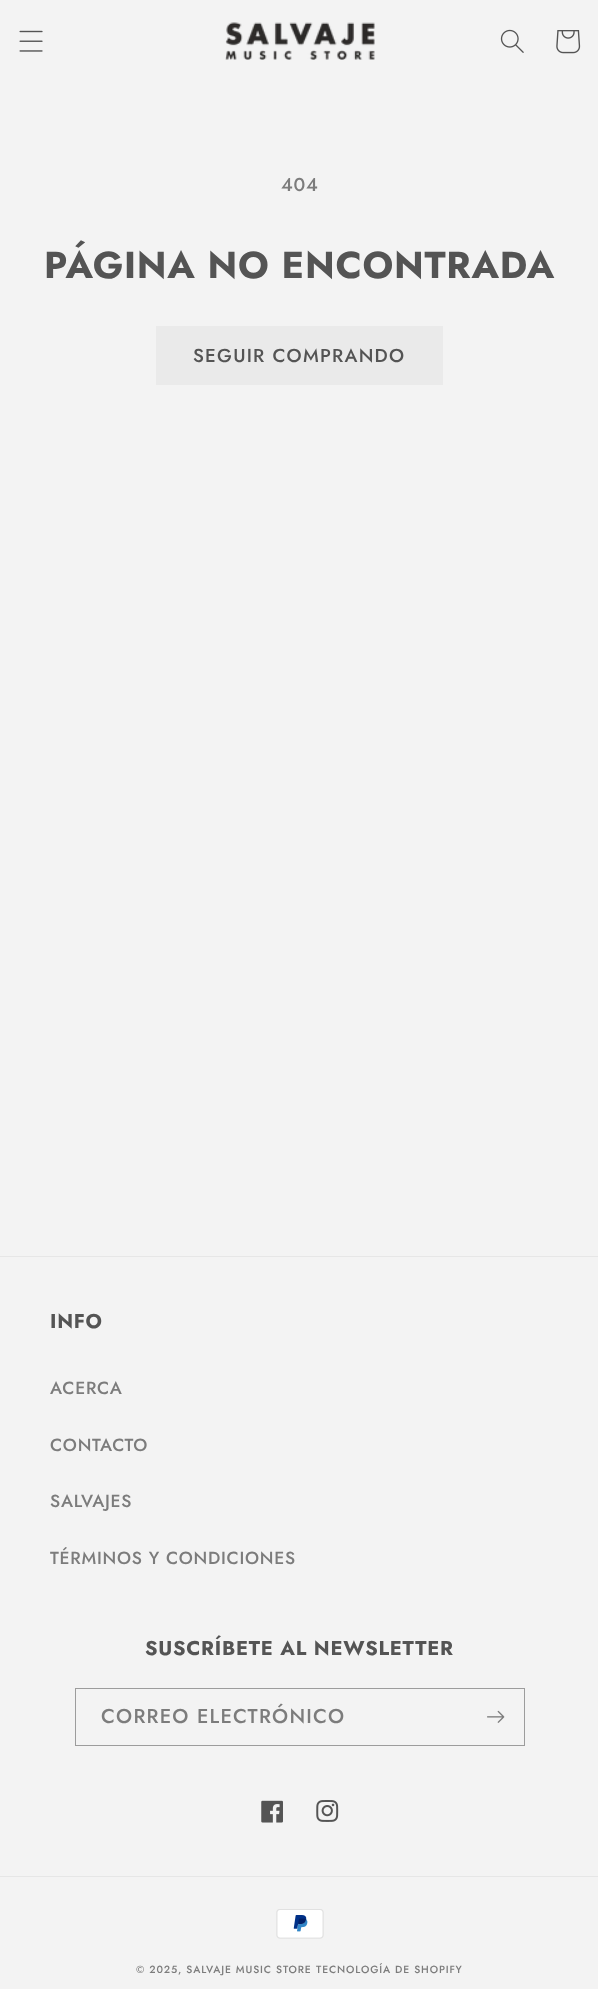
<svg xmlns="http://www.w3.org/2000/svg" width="598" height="1989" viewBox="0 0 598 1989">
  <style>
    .t1 { font: 500 18.75px Jost; letter-spacing: 0.75px; fill: #7c7c7c; }
    .t2 { font: bold 37.5px Jost; letter-spacing: 0.75px; fill: #545454; }
    .t3 { font: 500 18.75px Jost; letter-spacing: 1.25px; fill: #545454; }
    .t4 { font: bold 20px Jost; letter-spacing: 0.75px; fill: #545454; }
    .t5 { font: 500 17.5px Jost; letter-spacing: 0.75px; fill: #7c7c7c; }
    .t6 { font: 500 20px Jost; letter-spacing: 1.25px; fill: #7c7c7c; }
    .t7 { font: 500 10.4px Jost; letter-spacing: 0.9px; fill: #7c7c7c; }
  </style>
  <rect width="100%" height="100%" fill="#f3f3f3"/>
  <image x="19" y="30" width="24" height="22" href="images/1.png"/>
  <image x="225" y="22" width="150" height="38" href="images/2.png"/>
  <image x="500" y="29" width="24" height="24" href="images/3.png"/>
  <image x="556" y="30" width="25" height="24" href="images/4.png"/>
  <text x="281" y="191" class="t1">404</text>
  <text x="44" y="278" class="t2">PÁGINA NO ENCONTRADA</text>
  <rect x="156" y="326" width="287" height="59" fill="#eaeaea"/>
  <text x="193" y="362" class="t3">SEGUIR COMPRANDO</text>
  <rect x="0" y="1256" width="598" height="1" fill="#e6e6e6"/>
  <text x="50" y="1328" class="t4">INFO</text>
  <text x="50" y="1394" class="t5">ACERCA</text>
  <text x="50" y="1451" class="t5">CONTACTO</text>
  <text x="50" y="1507" class="t5">SALVAJES</text>
  <text x="50" y="1564" class="t5">TÉRMINOS Y CONDICIONES</text>
  <text x="145" y="1655" class="t4">SUSCRÍBETE AL NEWSLETTER</text>
  <rect x="75.5" y="1688.5" width="449" height="57" fill="none" stroke="#9c9c9c"/>
  <text x="101" y="1723" class="t6">CORREO ELECTRÓNICO</text>
  <image x="487" y="1710" width="18" height="13" href="images/5.png"/>
  <image x="261" y="1800" width="22" height="23" href="images/6.png"/>
  <image x="316" y="1800" width="23" height="22" href="images/7.png"/>
  <rect x="0" y="1876" width="598" height="1" fill="#e6e6e6"/>
  <image x="276" y="1909" width="48" height="30" href="images/8.png"/>
  <text x="136" y="1973" class="t7">© 2025, SALVAJE MUSIC STORE</text>
  <text x="316" y="1973" class="t7">TECNOLOGÍA DE SHOPIFY</text>
</svg>
